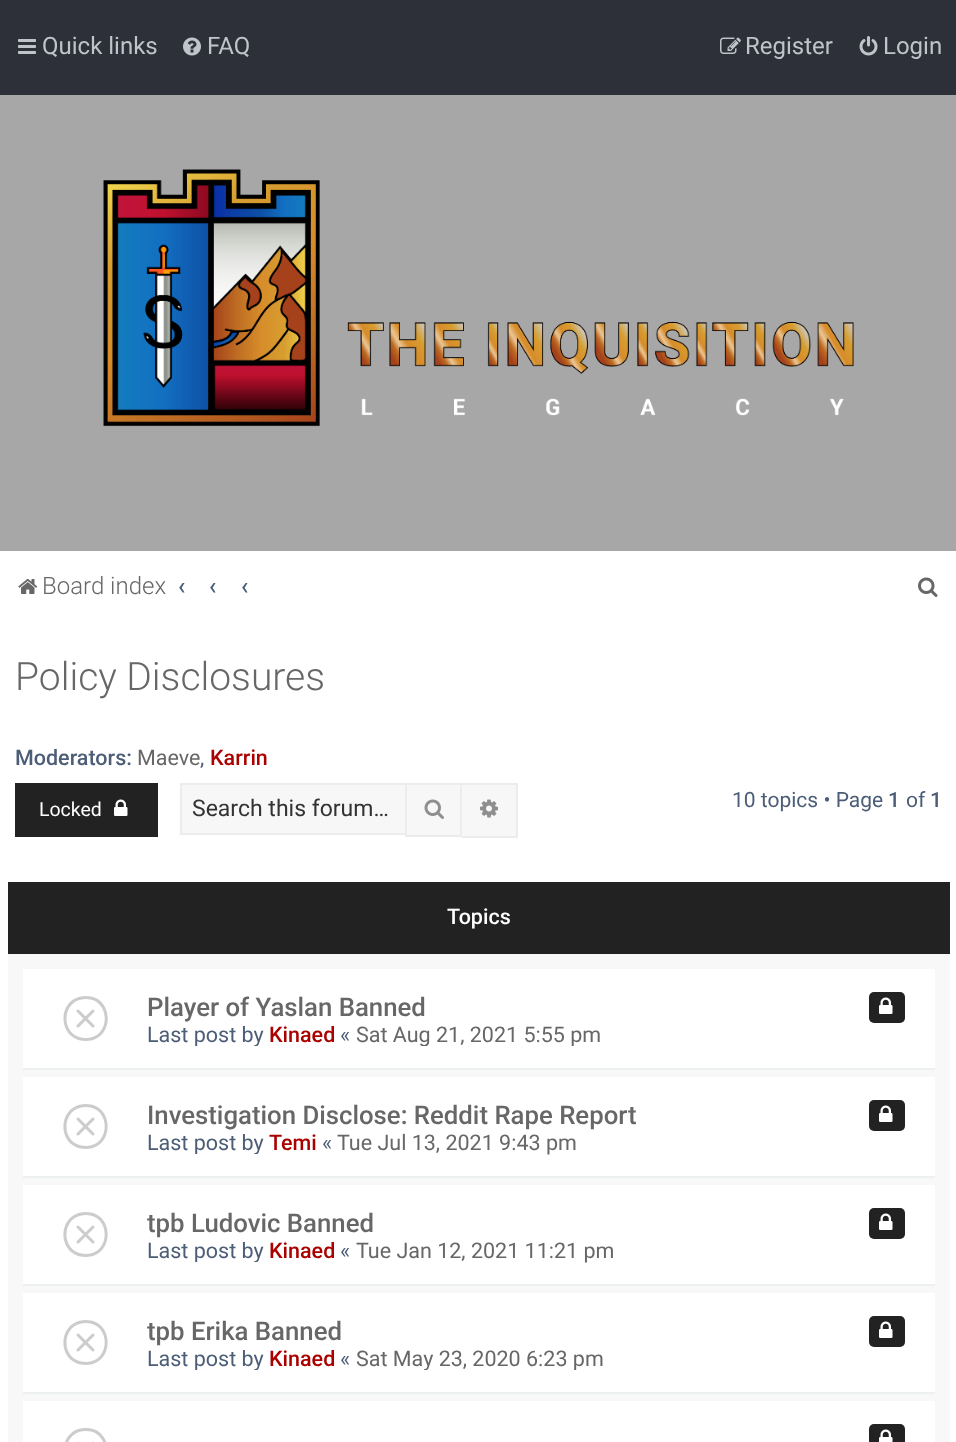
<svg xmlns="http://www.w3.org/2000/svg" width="956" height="1442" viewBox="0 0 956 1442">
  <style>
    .t1 { font: 24px Roboto; fill: #bec4c9; }
    .t2 { font: 300 24px Roboto; fill: #676767; }
    .t3 { font: 500 24px Roboto; fill: #4c5d77; }
    .t4 { font: 300 39px Roboto; fill: #676767; }
    .t5 { font: 500 21.5px Roboto; fill: #4c5d77; }
    .t6 { font: 21.5px Roboto; fill: #676767; }
    .t7 { font: 21.5px Roboto; fill: #4c5d77; }
    .t8 { font: 500 21.5px Roboto; fill: #a00; }
    .t9 { font: 19.5px Roboto; fill: #fff; }
    .t10 { font: 23px Roboto; fill: #333; }
    .t11 { font: 21px Roboto; fill: #4c5d77; }
    .t12 { font: 500 21px Roboto; fill: #4c5d77; }
    .t13 { font: 500 21.5px Roboto; fill: #fff; }
    .t14 { font: 500 25.75px Roboto; fill: #676767; }
  </style>
  <defs>
    <clipPath id="clip1"><rect x="45" y="992" width="867" height="54"/></clipPath>
    <clipPath id="clip2"><rect x="45" y="1100" width="867" height="54"/></clipPath>
    <clipPath id="clip3"><rect x="45" y="1208" width="867" height="54"/></clipPath>
    <clipPath id="clip4"><rect x="45" y="1316" width="867" height="54"/></clipPath>
  </defs>
  <rect width="100%" height="100%" fill="#a7a7a7"/>
  <rect x="0" y="0" width="956" height="95" fill="#2d3039"/>
  <image x="18" y="39" width="18" height="15" href="images/1.png"/>
  <text x="42" y="54" class="t1">Quick links</text>
  <image x="183" y="37" width="18" height="19" href="images/2.png"/>
  <text x="207" y="54" class="t1">FAQ</text>
  <image x="720" y="37" width="21" height="17" href="images/3.png"/>
  <text x="745" y="54" class="t1">Register</text>
  <image x="859" y="36" width="19" height="20" href="images/4.png"/>
  <text x="883" y="54" class="t1">Login</text>
  <image x="103" y="169" width="751" height="258" href="images/5.png"/>
  <rect x="0" y="551" width="956" height="891" fill="#fff"/>
  <image x="18" y="579" width="20" height="15" href="images/6.png"/>
  <text x="42" y="594" class="t2">Board index</text>
  <text x="178" y="594" class="t3">‹</text>
  <text x="209" y="594" class="t3">‹</text>
  <text x="241" y="594" class="t3">‹</text>
  <image x="918" y="577" width="20" height="20" href="images/7.png"/>
  <text x="15" y="690" class="t4">Policy Disclosures</text>
  <text x="15" y="765" class="t5">Moderators:</text>
  <text x="137" y="765" class="t6">Maeve</text>
  <text x="200" y="765" class="t7">,</text>
  <text x="210" y="765" class="t8">Karrin</text>
  <rect x="15" y="783" width="143" height="54" fill="#222223"/>
  <text x="39" y="816" class="t9">Locked</text>
  <image x="114" y="799" width="14" height="17" href="images/8.png"/>
  <rect x="182" y="785" width="223" height="48" fill="#f7f7f7"/>
  <rect x="180" y="783" width="225" height="2" fill="#edecec"/>
  <rect x="180" y="833" width="225" height="2" fill="#edecec"/>
  <rect x="180" y="783" width="2" height="51" fill="#edecec"/>
  <text x="192" y="816" class="t10">Search this forum…</text>
  <rect x="406" y="784" width="55" height="52" fill="#f7f7f7" stroke="#edecec" stroke-width="2"/>
  <image x="424" y="799" width="20" height="20" href="images/9.png"/>
  <rect x="462" y="785" width="54" height="51" fill="#f7f7f7"/>
  <rect x="462" y="783" width="56" height="2" fill="#edecec"/>
  <rect x="516" y="783" width="2" height="54" fill="#edecec"/>
  <rect x="462" y="836" width="56" height="2" fill="#edecec"/>
  <image x="480" y="799" width="18" height="19" href="images/10.png"/>
  <text x="732" y="807" class="t11">10 topics • Page</text>
  <text x="888" y="807" class="t12">1</text>
  <text x="906" y="807" class="t11">of</text>
  <text x="930" y="807" class="t12">1</text>
  <rect x="8" y="954" width="942" height="488" fill="#f8f8f8"/>
  <rect x="8" y="882" width="942" height="72" fill="#222223"/>
  <text x="447" y="924" class="t13">Topics</text>
  <rect x="23" y="969" width="912" height="99" fill="#fff"/>
  <rect x="23" y="1068" width="912" height="2" fill="#ecf0f1"/>
  <path d="M86 999C111 999 111 1038 86 1038C60 1038 60 999 86 999M86 996C56 996 56 1041 86 1041C115 1041 115 996 86 996Z" fill="#ccc"/>
  <path d="M78 1011L93 1026M93 1011L78 1026" fill="none" stroke="#ccc" stroke-width="3" stroke-linecap="round"/>
  <text x="147" y="1016" class="t14">Player of Yaslan Banned</text>
  <rect x="869" y="992" width="36" height="31" rx="5" fill="#222223"/>
  <image x="879" y="997" width="14" height="17" href="images/8.png"/>
  <g clip-path="url(#clip1)">
    <text x="147" y="1042" class="t7">Last post by</text>
  </g>
  <text x="269" y="1042" class="t8">Kinaed</text>
  <text x="340" y="1042" class="t7">«</text>
  <g clip-path="url(#clip1)">
    <text x="356" y="1042" class="t6">Sat Aug 21, 2021 5:55 pm</text>
  </g>
  <rect x="23" y="1077" width="912" height="99" fill="#fff"/>
  <rect x="23" y="1176" width="912" height="2" fill="#ecf0f1"/>
  <path d="M86 1107C111 1107 111 1146 86 1146C60 1146 60 1107 86 1107M86 1104C56 1104 56 1149 86 1149C115 1149 115 1104 86 1104Z" fill="#ccc"/>
  <path d="M78 1119L93 1134M93 1119L78 1134" fill="none" stroke="#ccc" stroke-width="3" stroke-linecap="round"/>
  <text x="147" y="1124" class="t14">Investigation Disclose: Reddit Rape Report</text>
  <rect x="869" y="1100" width="36" height="31" rx="5" fill="#222223"/>
  <image x="879" y="1105" width="14" height="17" href="images/8.png"/>
  <g clip-path="url(#clip2)">
    <text x="147" y="1150" class="t7">Last post by</text>
  </g>
  <text x="269" y="1150" class="t8">Temi</text>
  <text x="322" y="1150" class="t7">«</text>
  <text x="337" y="1150" class="t6">Tue Jul 13, 2021 9:43 pm</text>
  <rect x="23" y="1185" width="912" height="99" fill="#fff"/>
  <rect x="23" y="1284" width="912" height="2" fill="#ecf0f1"/>
  <path d="M86 1215C111 1215 111 1254 86 1254C60 1254 60 1215 86 1215M86 1212C56 1212 56 1257 86 1257C115 1257 115 1212 86 1212Z" fill="#ccc"/>
  <path d="M78 1227L93 1242M93 1227L78 1242" fill="none" stroke="#ccc" stroke-width="3" stroke-linecap="round"/>
  <text x="147" y="1232" class="t14">tpb Ludovic Banned</text>
  <rect x="869" y="1208" width="36" height="31" rx="5" fill="#222223"/>
  <image x="879" y="1213" width="14" height="17" href="images/8.png"/>
  <g clip-path="url(#clip3)">
    <text x="147" y="1258" class="t7">Last post by</text>
  </g>
  <text x="269" y="1258" class="t8">Kinaed</text>
  <text x="340" y="1258" class="t7">«</text>
  <text x="356" y="1258" class="t6">Tue Jan 12, 2021 11:21 pm</text>
  <rect x="23" y="1293" width="912" height="99" fill="#fff"/>
  <rect x="23" y="1392" width="912" height="2" fill="#ecf0f1"/>
  <path d="M86 1323C111 1323 111 1362 86 1362C60 1362 60 1323 86 1323M86 1320C56 1320 56 1365 86 1365C115 1365 115 1320 86 1320Z" fill="#ccc"/>
  <path d="M78 1335L93 1350M93 1335L78 1350" fill="none" stroke="#ccc" stroke-width="3" stroke-linecap="round"/>
  <text x="147" y="1340" class="t14">tpb Erika Banned</text>
  <rect x="869" y="1316" width="36" height="31" rx="5" fill="#222223"/>
  <image x="879" y="1321" width="14" height="17" href="images/8.png"/>
  <g clip-path="url(#clip4)">
    <text x="147" y="1366" class="t7">Last post by</text>
  </g>
  <text x="269" y="1366" class="t8">Kinaed</text>
  <text x="340" y="1366" class="t7">«</text>
  <g clip-path="url(#clip4)">
    <text x="356" y="1366" class="t6">Sat May 23, 2020 6:23 pm</text>
  </g>
  <rect x="23" y="1401" width="912" height="41" fill="#fff"/>
  <path d="M86 1431C111 1431 111 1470 86 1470C60 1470 60 1431 86 1431M86 1428C56 1428 56 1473 86 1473C115 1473 115 1428 86 1428Z" fill="#ccc"/>
  <path d="M78 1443L93 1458M93 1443L78 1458" fill="none" stroke="#ccc" stroke-width="3" stroke-linecap="round"/>
  <rect x="869" y="1424" width="36" height="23" rx="5" fill="#222223"/>
  <image x="879" y="1429" width="14" height="13" href="images/11.png"/>
</svg>
